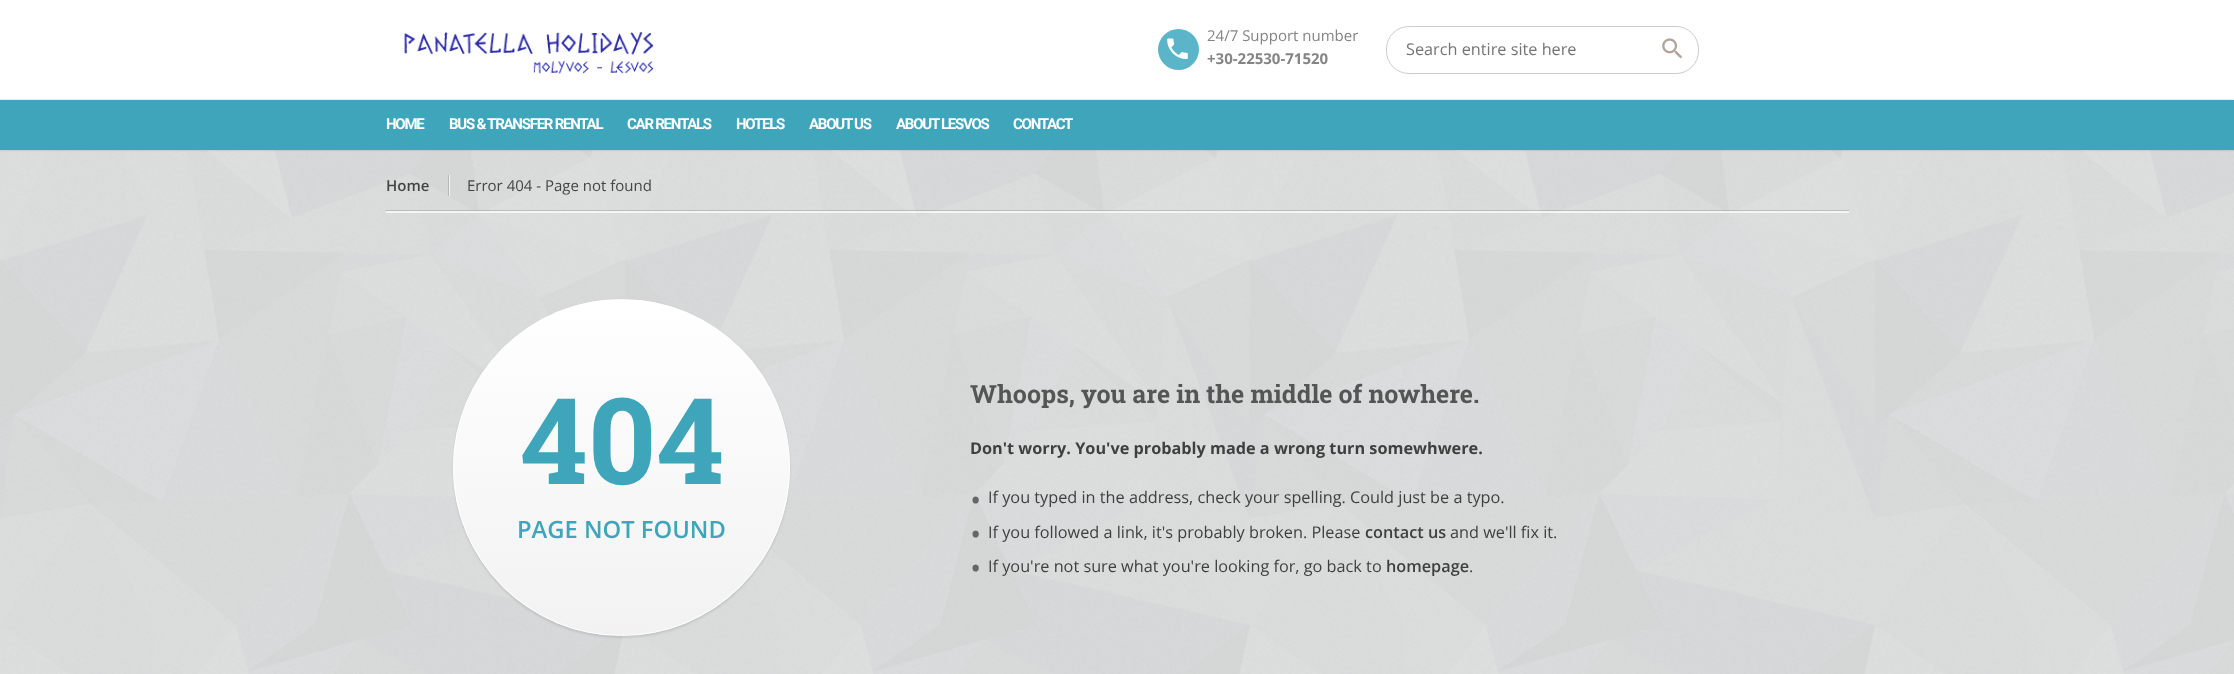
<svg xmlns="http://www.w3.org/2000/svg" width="2234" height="674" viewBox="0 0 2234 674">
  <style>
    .t1 { font: 15px Open Sans; fill: #858585; }
    .t2 { font: bold 15px Open Sans; fill: #858585; }
    .t3 { font: 16.25px Open Sans; fill: #757575; }
    .t4 { font: bold 15px Roboto; letter-spacing: -1.25px; fill: #fff; }
    .t5 { font: 600 15px Open Sans; fill: #454545; }
    .t6 { font: 15px Open Sans; fill: #454545; }
    .t7 { font: bold 120px Roboto Slab; fill: #3ea5bb; }
    .t8 { font: 600 23.75px Open Sans; fill: #3ea5bb; }
    .t9 { font: bold 25px Roboto Slab; fill: #555; }
    .t10 { font: bold 16.25px Open Sans; fill: #3f3f3f; }
    .t11 { font: 30px Open Sans; fill: #666; }
    .t12 { font: 16.25px Open Sans; fill: #3f3f3f; }
    .t13 { font: 600 16.25px Open Sans; fill: #3f3f3f; }
  </style>
  <defs>
    <clipPath id="clip1"><rect x="453" y="299" width="337" height="337" rx="168.5"/></clipPath>
    <linearGradient id="g1" gradientUnits="userSpaceOnUse" x1="621" y1="300" x2="621" y2="635"><stop offset="0" stop-color="#fff"/><stop offset="1" stop-color="#f2f2f2"/></linearGradient>
  </defs>
  <rect width="100%" height="100%" fill="#fff"/>
  <image x="0" y="150" width="2234" height="524" href="images/1.png"/>
  <image x="404" y="32" width="250" height="42" href="images/2.png"/>
  <circle cx="1178.5" cy="49.5" r="20.5" fill="#5bb5c8"/>
  <image x="1167" y="38" width="21" height="22" href="images/3.png"/>
  <text x="1207" y="41" class="t1">24/7 Support number</text>
  <text x="1207" y="64" class="t2">+30-22530-71520</text>
  <rect x="1386.5" y="26.5" width="312" height="47" rx="22.5" fill="none" stroke="#ccc"/>
  <text x="1406" y="55" class="t3">Search entire site here</text>
  <image x="1662" y="38" width="21" height="21" href="images/4.png"/>
  <rect x="0" y="100" width="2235" height="50" fill="#00000033" filter="blur(1px)"/>
  <rect x="0" y="100" width="2234" height="50" fill="#3ea5bb"/>
  <text x="386" y="129" class="t4">HOME</text>
  <text x="449" y="129" class="t4">BUS &amp; TRANSFER RENTAL</text>
  <text x="627" y="129" class="t4">CAR RENTALS</text>
  <text x="736" y="129" class="t4">HOTELS</text>
  <text x="809" y="129" class="t4">ABOUT US</text>
  <text x="896" y="129" class="t4">ABOUT LESVOS</text>
  <text x="1013" y="129" class="t4">CONTACT</text>
  <path d="M386 176V213H1849V176V211H386Z" fill="#ffffffb3"/>
  <rect x="386" y="210" width="1463" height="1" fill="#00000026"/>
  <text x="386" y="191" class="t5">Home</text>
  <rect x="449" y="175" width="1" height="21" fill="#ffffffb3"/>
  <rect x="448" y="175" width="1" height="21" fill="#00000026"/>
  <text x="467" y="191" class="t6">Error 404 - Page not found</text>
  <rect x="453" y="300" width="337" height="338" rx="168.5" fill="#0000001a" filter="blur(1px)"/>
  <g clip-path="url(#clip1)">
    <rect x="453" y="300" width="337" height="335" fill="url(#g1)"/>
  </g>
  <circle cx="621.5" cy="467.5" r="168" fill="none" stroke="#fff"/>
  <text x="520" y="484" class="t7">404</text>
  <text x="517" y="538" class="t8">PAGE NOT FOUND</text>
  <text x="970" y="403" class="t9">Whoops, you are in the middle of nowhere.</text>
  <text x="970" y="454" class="t10">Don't worry. You've probably made a wrong turn somewhwere.</text>
  <text x="970" y="511" class="t11">•</text>
  <text x="988" y="503" class="t12">If you typed in the address, check your spelling. Could just be a typo.</text>
  <text x="970" y="545" class="t11">•</text>
  <text x="988" y="538" class="t12">If you followed a link, it's probably broken. Please</text>
  <text x="1365" y="538" class="t13">contact us</text>
  <text x="1450" y="538" class="t12">and we'll fix it.</text>
  <text x="970" y="579" class="t11">•</text>
  <text x="988" y="572" class="t12">If you're not sure what you're looking for, go back to</text>
  <text x="1386" y="572" class="t13">homepage</text>
  <text x="1469" y="572" class="t12">.</text>
</svg>
